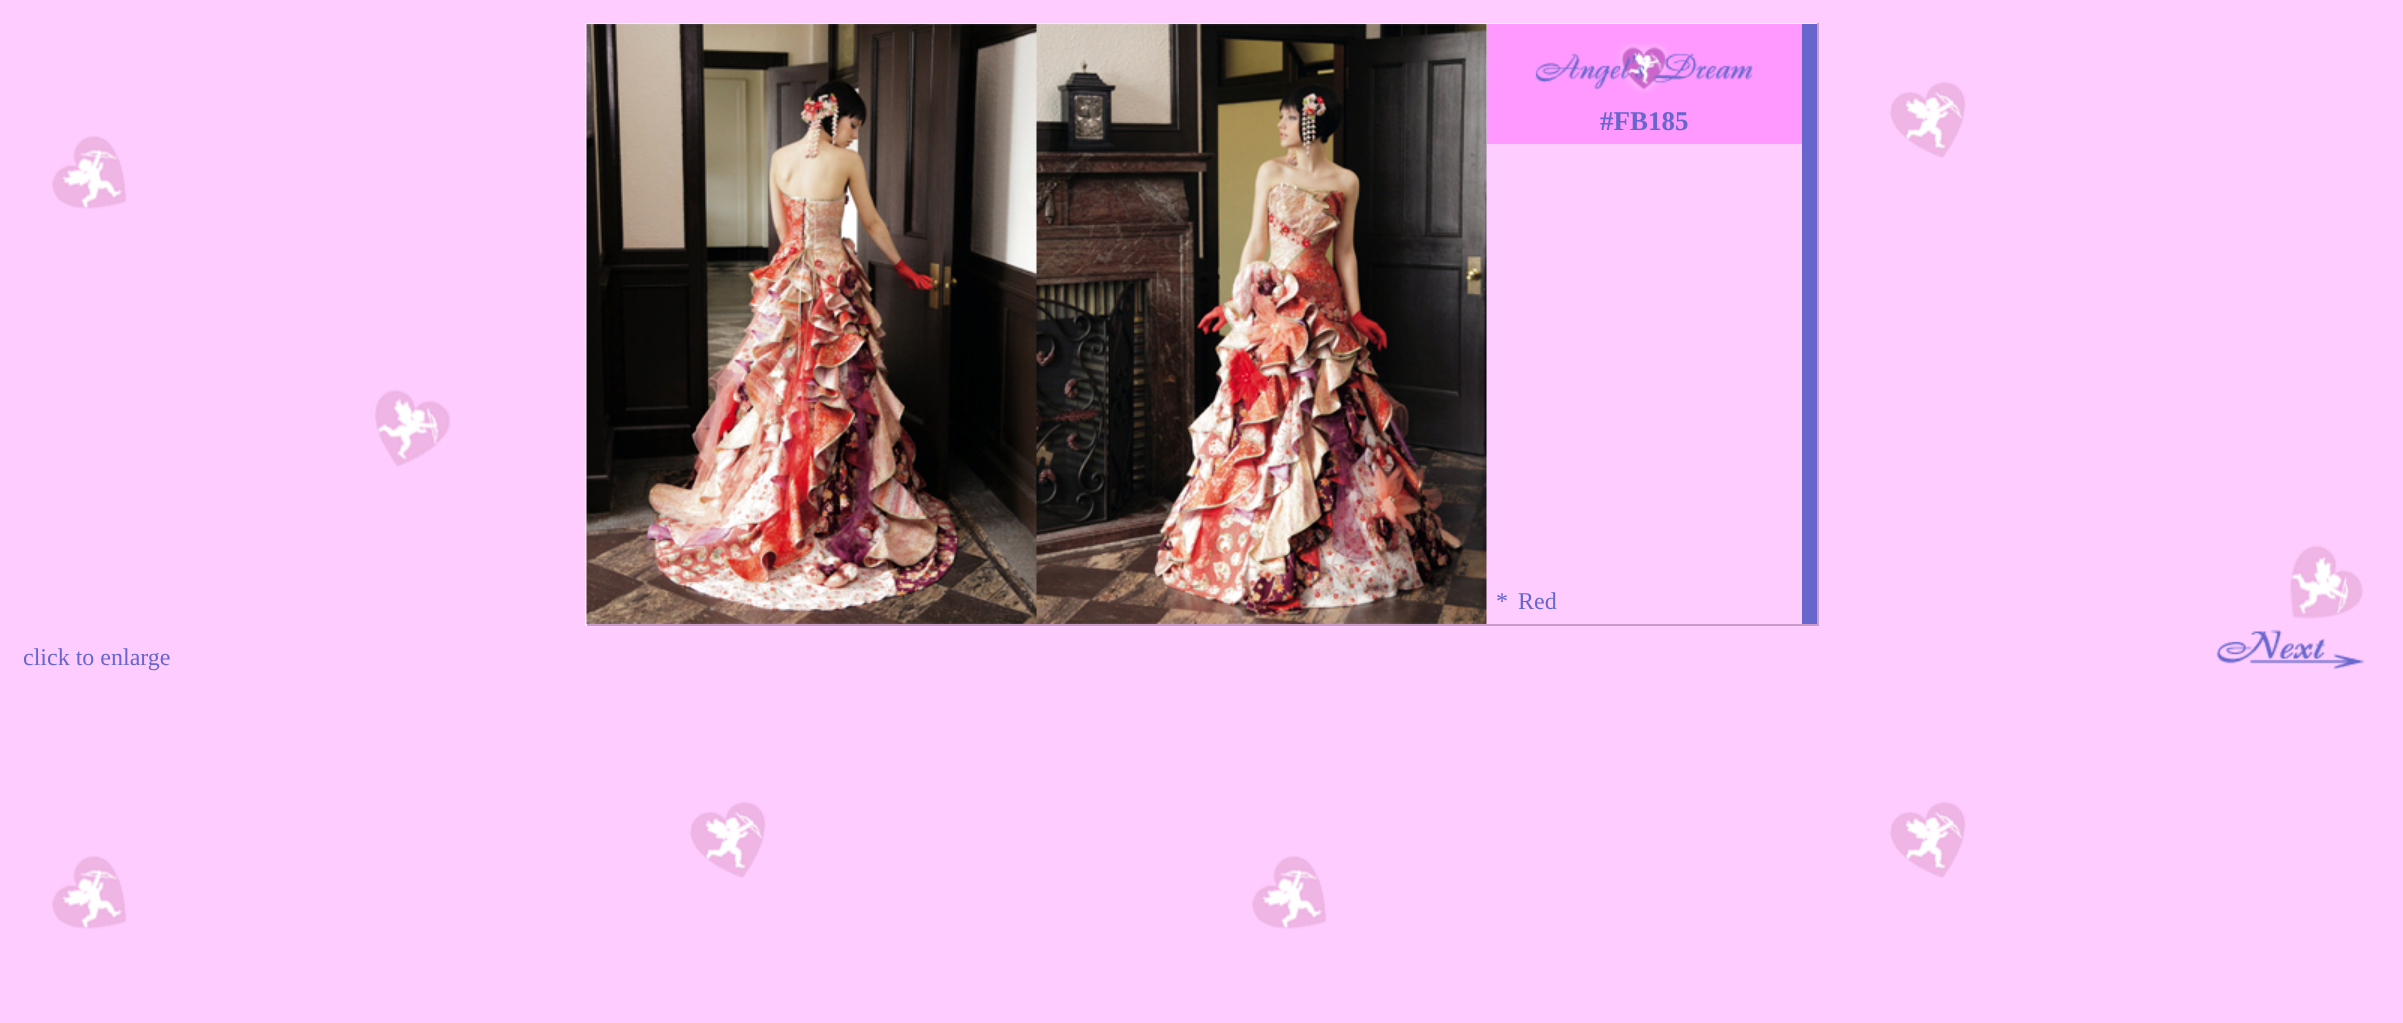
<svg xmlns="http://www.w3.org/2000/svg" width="2403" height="1023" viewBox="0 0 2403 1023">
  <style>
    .t1 { font: bold 27px Liberation Serif; fill: #66c; }
    .t2 { font: 24px Liberation Serif; fill: #66c; }
  </style>
  <rect width="100%" height="100%" fill="#fff"/>
  <image x="0" y="0" width="2403" height="1023" href="images/1.png"/>
  <rect x="1574" y="389" width="77" height="78" fill="#fcf"/>
  <rect x="585" y="23" width="1233" height="2" fill="#fef"/>
  <rect x="1817" y="23" width="2" height="603" fill="#c9c"/>
  <rect x="585" y="624" width="1233" height="2" fill="#c9c"/>
  <rect x="585" y="23" width="2" height="603" fill="#fef"/>
  <image x="586" y="24" width="901" height="600" href="images/2.png"/>
  <rect x="1487" y="24" width="315" height="120" fill="#f9f"/>
  <rect x="1802" y="24" width="15" height="600" fill="#66c"/>
  <image x="1535" y="43" width="218" height="50" href="images/3.png"/>
  <text x="1600" y="130" class="t1">#FB185</text>
  <text x="1496" y="609" class="t2">*</text>
  <text x="1518" y="609" class="t2">Red</text>
  <text x="23" y="665" class="t2">click to enlarge</text>
  <image x="2216" y="629" width="149" height="41" href="images/4.png"/>
</svg>
